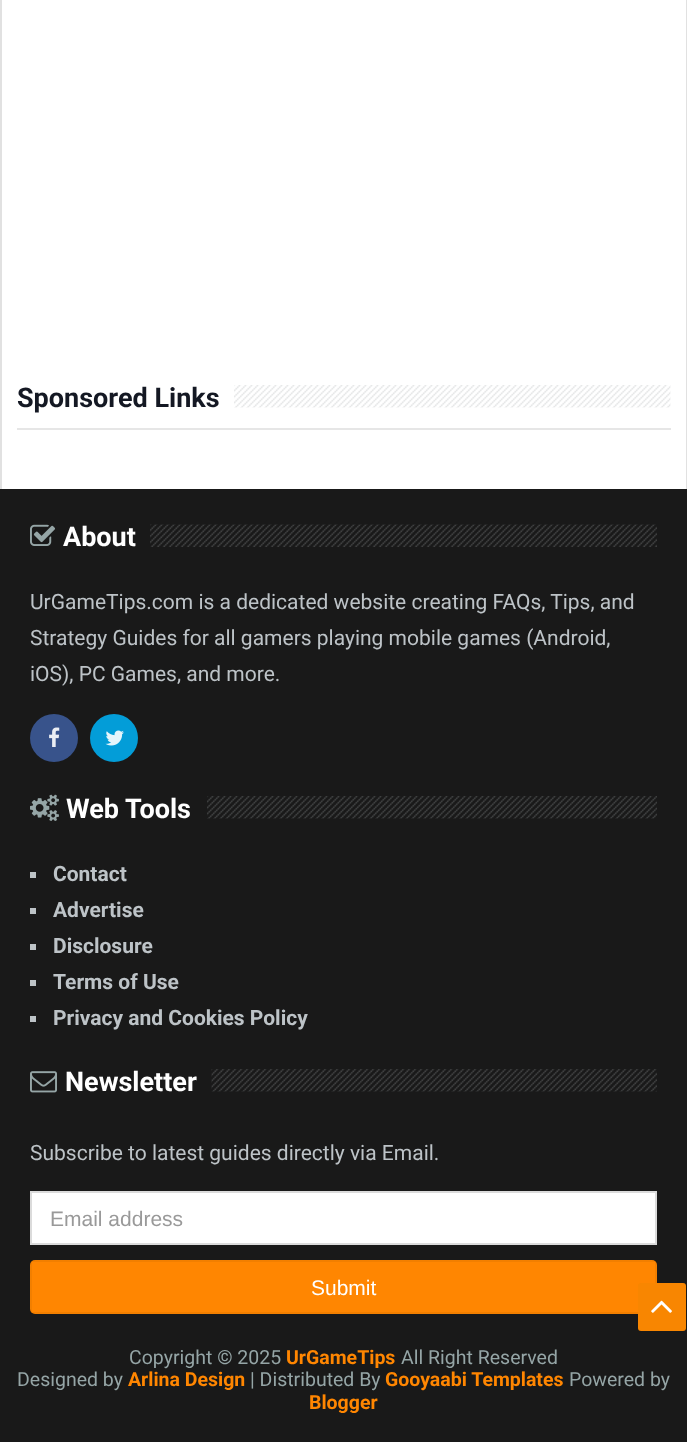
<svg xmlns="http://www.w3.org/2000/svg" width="687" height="1442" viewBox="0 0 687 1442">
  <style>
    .t1 { font: bold 27px Roboto; fill: #141823; }
    .t2 { font: bold 27px Roboto; fill: #fff; }
    .t3 { font: 21px Roboto; fill: #bdc3c7; }
    .t4 { font: bold 21px Roboto; fill: #bdc3c7; }
    .t5 { font: 21px Liberation Sans; fill: #999; }
    .t6 { font: 21px Liberation Sans; fill: #fff; }
    .t7 { font: 19.5px Roboto; fill: #95a5a6; }
    .t8 { font: bold 19.5px Roboto; fill: #ff8601; }
  </style>
  <rect width="100%" height="100%" fill="#191919"/>
  <rect x="686" y="0" width="1" height="489" fill="#e1e1e1"/>
  <rect x="0" y="0" width="2" height="489" fill="#e1e1e1"/>
  <rect x="2" y="0" width="684" height="489" fill="#fff"/>
  <rect x="17" y="428" width="654" height="2" fill="#e6e6e6"/>
  <text x="17" y="407" class="t1">Sponsored Links</text>
  <image x="234" y="385" width="437" height="23" href="images/1.png"/>
  <image x="30" y="524" width="25" height="22" href="images/2.png"/>
  <text x="63" y="546" class="t2">About</text>
  <image x="150" y="524" width="507" height="23" href="images/3.png"/>
  <text x="30" y="609" class="t3">UrGameTips.com is a dedicated website creating FAQs, Tips, and</text>
  <text x="30" y="645" class="t3">Strategy Guides for all gamers playing mobile games (Android,</text>
  <text x="30" y="681" class="t3">iOS), PC Games, and more.</text>
  <circle cx="54" cy="738" r="24" fill="#38538b"/>
  <image x="49" y="727" width="11" height="20" href="images/4.png"/>
  <circle cx="114" cy="738" r="24" fill="#039dd8"/>
  <image x="105" y="730" width="19" height="16" href="images/5.png"/>
  <image x="30" y="794" width="29" height="27" href="images/6.png"/>
  <text x="66" y="818" class="t2">Web Tools</text>
  <image x="207" y="796" width="450" height="23" href="images/7.png"/>
  <rect x="30" y="872" width="6" height="6" fill="#bdc3c7"/>
  <text x="53" y="881" class="t4">Contact</text>
  <rect x="30" y="908" width="6" height="6" fill="#bdc3c7"/>
  <text x="53" y="917" class="t4">Advertise</text>
  <rect x="30" y="944" width="6" height="6" fill="#bdc3c7"/>
  <text x="53" y="953" class="t4">Disclosure</text>
  <rect x="30" y="980" width="6" height="6" fill="#bdc3c7"/>
  <text x="53" y="989" class="t4">Terms of Use</text>
  <rect x="30" y="1016" width="6" height="6" fill="#bdc3c7"/>
  <text x="53" y="1025" class="t4">Privacy and Cookies Policy</text>
  <image x="30" y="1071" width="27" height="22" href="images/8.png"/>
  <text x="65" y="1091" class="t2">Newsletter</text>
  <image x="211" y="1069" width="446" height="23" href="images/9.png"/>
  <text x="30" y="1160" class="t3">Subscribe to latest guides directly via Email.</text>
  <rect x="31" y="1192" width="625" height="52" fill="#fff" stroke="#dbdbdb" stroke-width="2"/>
  <text x="50" y="1226" class="t5">Email address</text>
  <rect x="30" y="1260" width="627" height="54" rx="5" fill="#ff8601"/>
  <rect x="31" y="1261" width="625" height="52" fill="none" stroke="#0000000d" stroke-width="2"/>
  <text x="311" y="1295" class="t6">Submit</text>
  <text x="129" y="1364" class="t7">Copyright © 2025</text>
  <text x="286" y="1364" class="t8">UrGameTips</text>
  <text x="401" y="1364" class="t7">All Right Reserved</text>
  <text x="17" y="1386" class="t7">Designed by</text>
  <text x="128" y="1386" class="t8">Arlina Design</text>
  <text x="250" y="1386" class="t7">| Distributed By</text>
  <text x="385" y="1386" class="t8">Gooyaabi Templates</text>
  <text x="569" y="1386" class="t7">Powered by</text>
  <text x="309" y="1409" class="t8">Blogger</text>
  <rect x="638" y="1283" width="48" height="48" rx="3" fill="#f88601"/>
  <image x="651" y="1300" width="21" height="13" href="images/10.png"/>
</svg>
